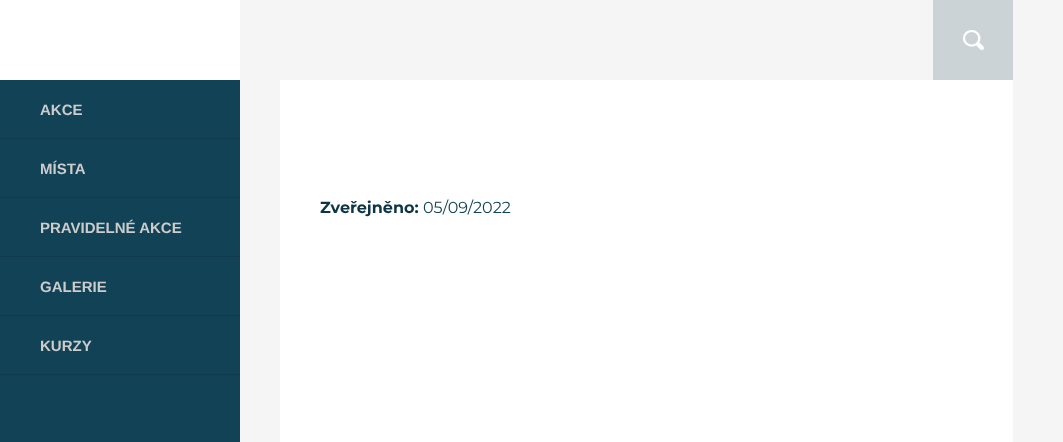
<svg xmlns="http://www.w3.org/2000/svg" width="1063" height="442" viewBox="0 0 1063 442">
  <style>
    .t1 { font: bold 15px Liberation Sans; fill: #ccc; }
    .t2 { font: bold 16px Montserrat; fill: #0d3545; }
    .t3 { font: 16px Montserrat; fill: #124255; }
  </style>
  <rect width="100%" height="100%" fill="#f5f5f5"/>
  <rect x="0" y="80" width="240" height="362" fill="#124255"/>
  <rect x="0" y="0" width="240" height="80" fill="#fff"/>
  <rect x="0" y="138" width="240" height="1" fill="#0f3b4c"/>
  <text x="40" y="115" class="t1">AKCE</text>
  <rect x="0" y="197" width="240" height="1" fill="#0f3b4c"/>
  <text x="40" y="174" class="t1">MÍSTA</text>
  <rect x="0" y="256" width="240" height="1" fill="#0f3b4c"/>
  <text x="40" y="233" class="t1">PRAVIDELNÉ AKCE</text>
  <rect x="0" y="315" width="240" height="1" fill="#0f3b4c"/>
  <text x="40" y="292" class="t1">GALERIE</text>
  <rect x="0" y="374" width="240" height="1" fill="#0f3b4c"/>
  <text x="40" y="351" class="t1">KURZY</text>
  <rect x="933" y="0" width="80" height="80" fill="#cbd3d7"/>
  <image x="963" y="30" width="21" height="20" href="images/1.png"/>
  <rect x="280" y="80" width="733" height="362" fill="#fff"/>
  <text x="320" y="213" class="t2">Zveřejněno:</text>
  <text x="423" y="213" class="t3">05/09/2022</text>
</svg>
